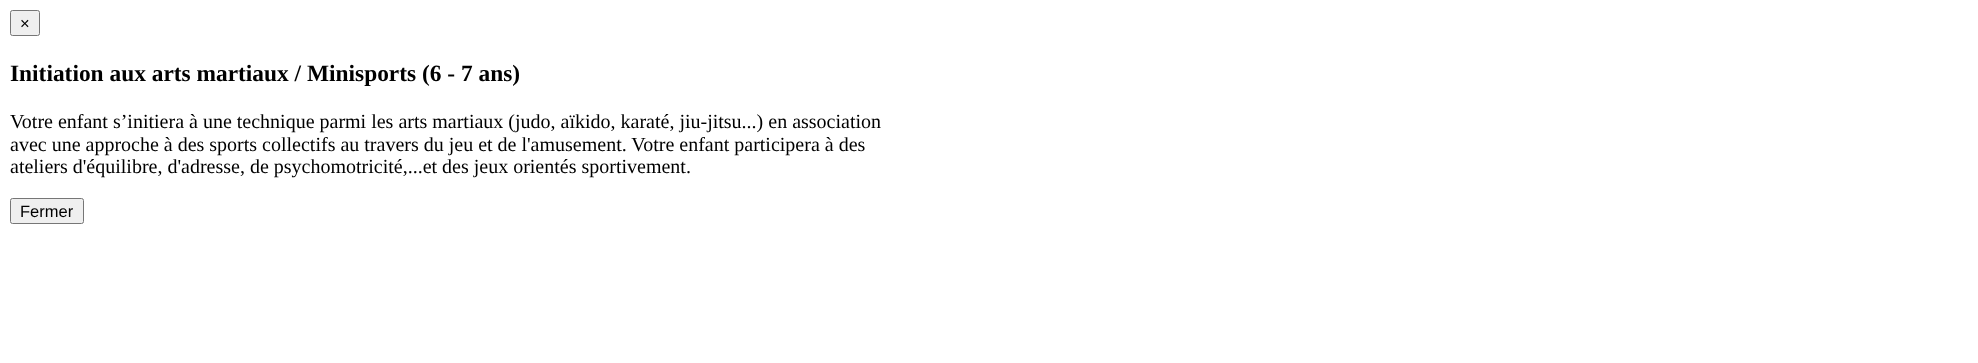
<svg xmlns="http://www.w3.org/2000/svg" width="1978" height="363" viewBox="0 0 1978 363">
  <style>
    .t1 { font: 16.5px Liberation Sans; fill: #000; }
    .t2 { font: bold 23.4px Liberation Serif; fill: #000; }
    .t3 { font: 20px Liberation Serif; fill: #000; }
  </style>
  <rect width="100%" height="100%" fill="#fff"/>
  <rect x="10.5" y="10.5" width="29" height="25" rx="2" fill="#efefef" stroke="#767676"/>
  <text x="20" y="29" class="t1">×</text>
  <text x="10" y="81" class="t2">Initiation aux arts martiaux / Minisports (6 - 7 ans)</text>
  <text x="10" y="128" class="t3">Votre enfant s’initiera à une technique parmi les arts martiaux (judo, aïkido, karaté, jiu-jitsu...) en association</text>
  <text x="10" y="151" class="t3">avec une approche à des sports collectifs au travers du jeu et de l'amusement. Votre enfant participera à des</text>
  <text x="10" y="173" class="t3">ateliers d'équilibre, d'adresse, de psychomotricité,...et des jeux orientés sportivement.</text>
  <rect x="10.5" y="198.5" width="73" height="25" rx="2" fill="#efefef" stroke="#767676"/>
  <text x="20" y="217" class="t1">Fermer</text>
</svg>
